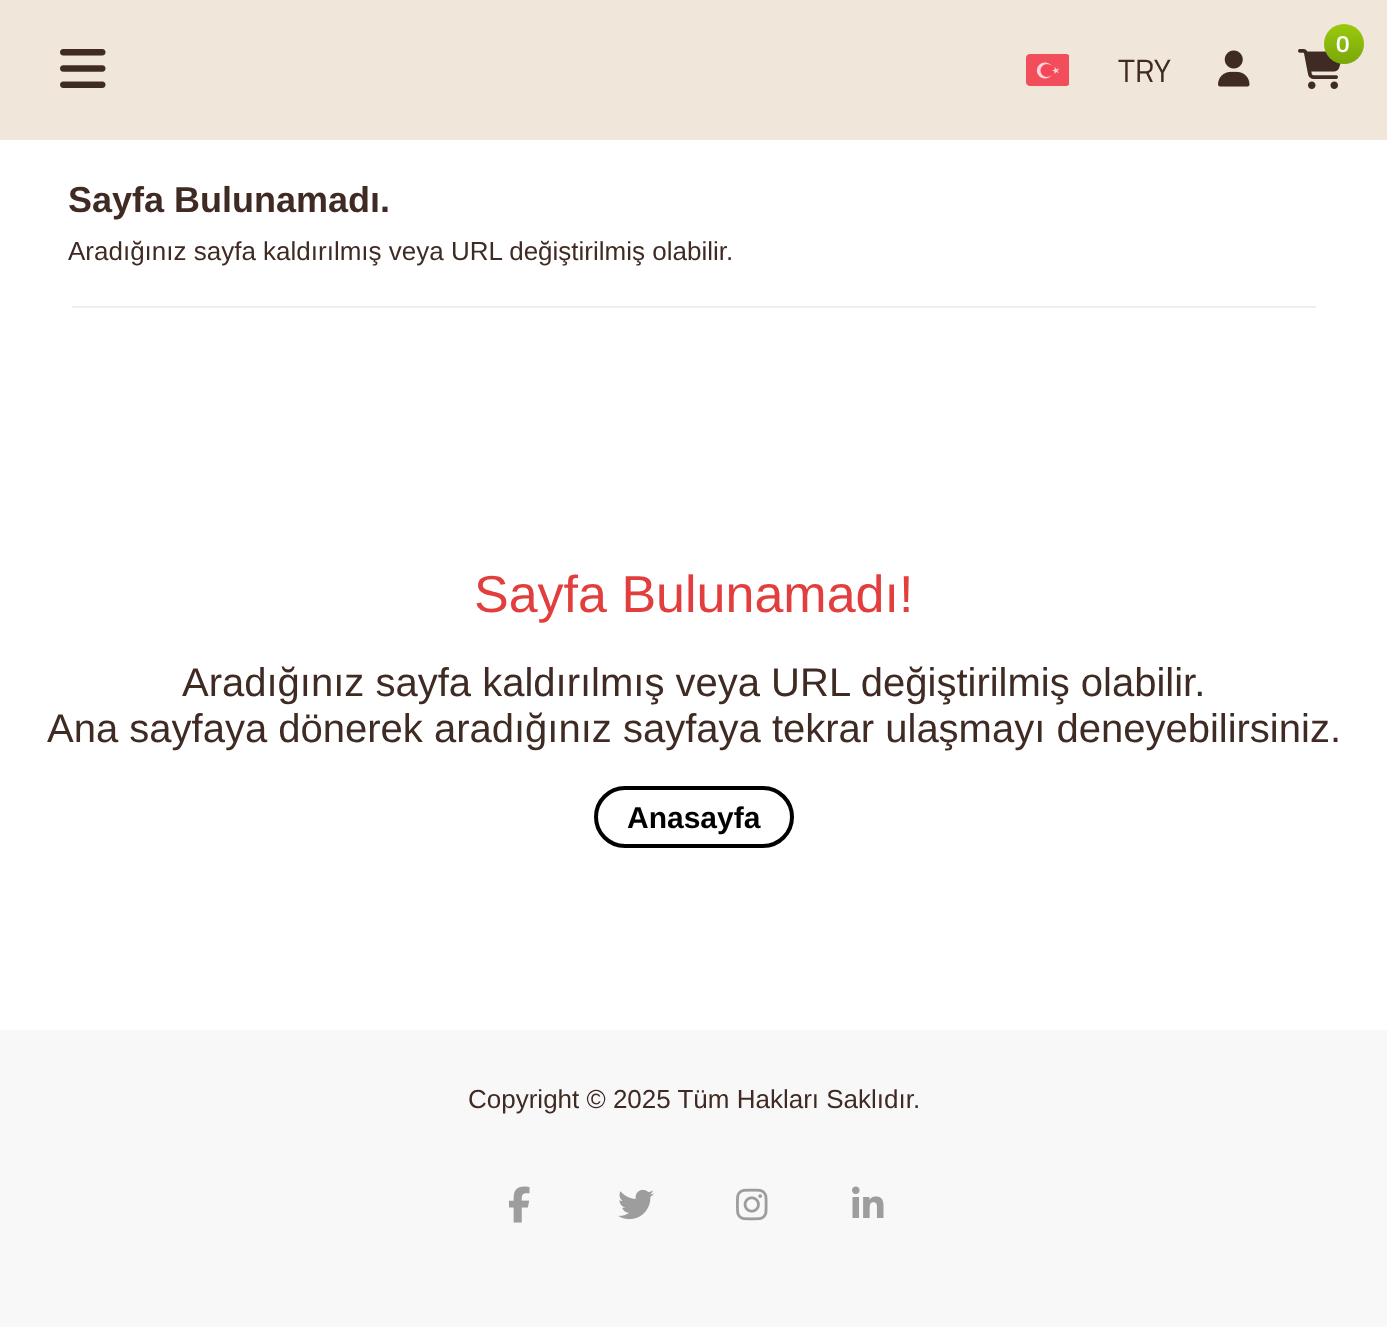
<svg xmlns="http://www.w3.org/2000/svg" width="1387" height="1327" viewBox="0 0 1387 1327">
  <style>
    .t1 { font: 600 24px Titillium Web; fill: #fff; }
    .t2 { font: 32px Titillium Web; fill: #3f2b24; }
    .t3 { font: bold 36px Liberation Sans; fill: #3f2b24; }
    .t4 { font: 26px Liberation Sans; fill: #3f2b24; }
    .t5 { font: 52px Liberation Sans; fill: #e23e3d; }
    .t6 { font: 40px Liberation Sans; fill: #3f2b24; }
    .t7 { font: bold 30px Liberation Sans; fill: #000; }
  </style>
  <defs>
    <linearGradient id="g1" gradientUnits="userSpaceOnUse" x1="1344" y1="24" x2="1344" y2="64"><stop offset="0" stop-color="#9bc90d"/><stop offset="1" stop-color="#79a70a"/></linearGradient>
  </defs>
  <rect width="100%" height="100%" fill="#f8f8f8"/>
  <rect x="0" y="0" width="1387" height="140" fill="#f0e6da"/>
  <image x="60" y="49" width="46" height="39" href="images/1.png"/>
  <image x="1298" y="49" width="43" height="40" href="images/2.png"/>
  <circle cx="1344" cy="44" r="20" fill="url(#g1)"/>
  <text x="1336" y="52" class="t1">0</text>
  <image x="1026" y="54" width="43" height="32" href="images/3.png"/>
  <text x="1118" y="82" class="t2">TRY</text>
  <image x="1218" y="50" width="32" height="37" href="images/4.png"/>
  <rect x="0" y="140" width="1387" height="890" fill="#fff"/>
  <rect x="72" y="306" width="1244" height="2" fill="#eee"/>
  <text x="68" y="212" class="t3">Sayfa Bulunamadı.</text>
  <text x="68" y="260" class="t4">Aradığınız sayfa kaldırılmış veya URL değiştirilmiş olabilir.</text>
  <text x="474" y="612" class="t5">Sayfa Bulunamadı!</text>
  <text x="182" y="696" class="t6">Aradığınız sayfa kaldırılmış veya URL değiştirilmiş olabilir.</text>
  <text x="47" y="742" class="t6">Ana sayfaya dönerek aradığınız sayfaya tekrar ulaşmayı deneyebilirsiniz.</text>
  <rect x="596" y="788" width="196" height="58" rx="29" fill="none" stroke="#000" stroke-width="4"/>
  <text x="627" y="828" class="t7">Anasayfa</text>
  <text x="468" y="1108" class="t4">Copyright © 2025 Tüm Hakları Saklıdır.</text>
  <image x="509" y="1186" width="21" height="37" href="images/5.png"/>
  <image x="618" y="1189" width="36" height="31" href="images/6.png"/>
  <image x="736" y="1188" width="32" height="33" href="images/7.png"/>
  <image x="852" y="1186" width="32" height="32" href="images/8.png"/>
</svg>
